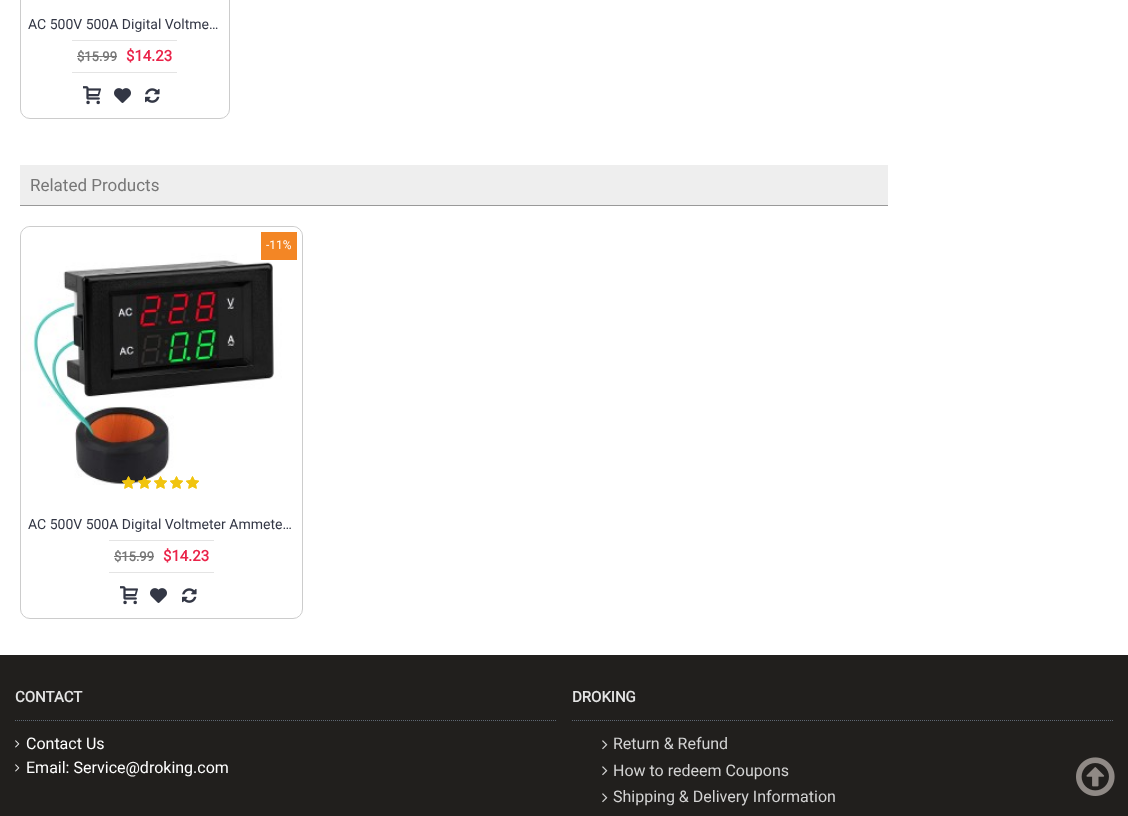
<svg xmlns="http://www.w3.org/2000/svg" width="1128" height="816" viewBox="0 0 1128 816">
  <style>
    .t1 { font: 14px Roboto; fill: #333745; }
    .t2 { font: bold 13px Roboto; fill: #777; }
    .t3 { font: bold 15px Roboto; fill: #ea2349; }
    .t4 { font: 17px Roboto; fill: #777; }
    .t5 { font: 12px Roboto; fill: #fff; }
    .t6 { font: bold 15px Roboto; fill: #e4e4e4; }
    .t7 { font: 16px Roboto; fill: #fff; }
    .t8 { font: 16px Roboto; fill: #d3d3d3; }
  </style>
  <rect width="100%" height="100%" fill="#fff"/>
  <rect x="20.5" y="-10.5" width="209" height="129" rx="9.5" fill="none" stroke="#ccc"/>
  <text x="28" y="29" class="t1">AC 500V 500A Digital Voltme…</text>
  <rect x="72" y="40" width="105" height="1" fill="#e4e4e4"/>
  <rect x="72" y="72" width="105" height="1" fill="#e4e4e4"/>
  <text x="77" y="61" class="t2">$15.99</text>
  <rect x="77" y="56" width="40" height="1" fill="#777"/>
  <text x="126" y="61" class="t3">$14.23</text>
  <image x="83" y="86" width="18" height="19" href="images/1.png"/>
  <image x="114" y="88" width="17" height="15" href="images/2.png"/>
  <image x="145" y="88" width="15" height="15" href="images/3.png"/>
  <rect x="20" y="165" width="868" height="40" fill="#eee"/>
  <rect x="20" y="205" width="868" height="1" fill="#999"/>
  <text x="30" y="191" class="t4">Related Products</text>
  <rect x="20.5" y="226.5" width="282" height="392" rx="9.5" fill="none" stroke="#ccc"/>
  <image x="21" y="227" width="281" height="258" href="images/4.png"/>
  <rect x="261" y="232" width="36" height="28" fill="#f38625"/>
  <text x="266" y="249" class="t5">-11%</text>
  <image x="122" y="476" width="13" height="13" href="images/5.png"/>
  <image x="122" y="476" width="13" height="13" href="images/6.png"/>
  <image x="138" y="476" width="13" height="13" href="images/7.png"/>
  <image x="138" y="476" width="13" height="13" href="images/8.png"/>
  <image x="154" y="476" width="13" height="13" href="images/9.png"/>
  <image x="154" y="476" width="13" height="13" href="images/10.png"/>
  <image x="170" y="476" width="13" height="13" href="images/11.png"/>
  <image x="170" y="476" width="13" height="13" href="images/12.png"/>
  <image x="186" y="476" width="13" height="13" href="images/11.png"/>
  <image x="186" y="476" width="13" height="13" href="images/12.png"/>
  <text x="28" y="529" class="t1">AC 500V 500A Digital Voltmeter Ammete…</text>
  <rect x="109" y="540" width="105" height="1" fill="#e4e4e4"/>
  <rect x="109" y="572" width="105" height="1" fill="#e4e4e4"/>
  <text x="114" y="561" class="t2">$15.99</text>
  <rect x="114" y="556" width="40" height="1" fill="#777"/>
  <text x="163" y="561" class="t3">$14.23</text>
  <image x="120" y="586" width="18" height="19" href="images/1.png"/>
  <image x="150" y="588" width="17" height="15" href="images/2.png"/>
  <image x="182" y="588" width="15" height="15" href="images/3.png"/>
  <rect x="0" y="655" width="1128" height="161" fill="#211f1d"/>
  <path d="M15 720.5H557" fill="none" stroke="#5f6874" stroke-dasharray="1 1"/>
  <text x="15" y="702" class="t6">CONTACT</text>
  <image x="15" y="740" width="5" height="8" href="images/13.png"/>
  <text x="26" y="749" class="t7">Contact Us</text>
  <image x="15" y="764" width="5" height="8" href="images/13.png"/>
  <text x="26" y="773" class="t7">Email: Service@droking.com</text>
  <path d="M572 720.5H1113" fill="none" stroke="#5f6874" stroke-dasharray="1 1"/>
  <text x="572" y="702" class="t6">DROKING</text>
  <image x="602" y="740" width="6" height="10" href="images/14.png"/>
  <text x="613" y="749" class="t8">Return &amp; Refund</text>
  <image x="602" y="766" width="6" height="10" href="images/14.png"/>
  <text x="613" y="776" class="t8">How to redeem Coupons</text>
  <image x="602" y="793" width="6" height="10" href="images/14.png"/>
  <text x="613" y="802" class="t8">Shipping &amp; Delivery Information</text>
  <image x="1076" y="757" width="39" height="39" href="images/15.png"/>
</svg>
